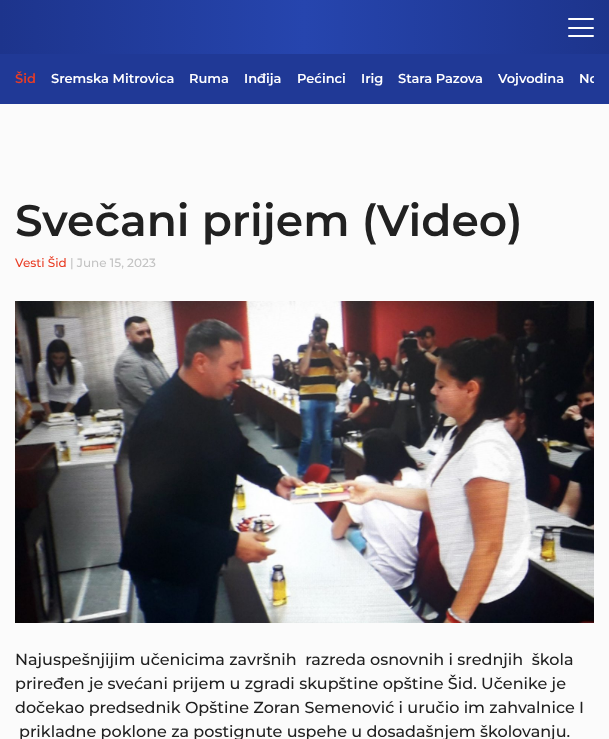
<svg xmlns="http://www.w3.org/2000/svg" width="609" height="739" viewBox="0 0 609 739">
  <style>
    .t1 { font: 600 13px Montserrat; fill: #e93d25; }
    .t2 { font: 600 13px Montserrat; fill: #fff; }
    .t3 { font: 600 44px Montserrat; fill: #212121; }
    .t4 { font: 500 12px Montserrat; fill: #e93d25; }
    .t5 { font: 500 12px Montserrat; fill: #c3c3c3; }
    .t6 { font: 500 16px Montserrat; fill: #212121; }
  </style>
  <defs>
    <linearGradient id="g1" gradientUnits="userSpaceOnUse" x1="0" y1="27" x2="609" y2="27"><stop offset="0" stop-color="#1d348c"/><stop offset="0.5" stop-color="#2645ae"/><stop offset="1" stop-color="#1d348c"/></linearGradient>
    <clipPath id="clip1"><rect x="15" y="54" width="579" height="50"/></clipPath>
  </defs>
  <rect width="100%" height="100%" fill="#fbfbfb"/>
  <rect x="0" y="0" width="609" height="54" fill="url(#g1)"/>
  <rect x="568" y="18" width="26" height="2" rx="1" fill="#fff"/>
  <rect x="568" y="27" width="26" height="2" rx="1" fill="#fff"/>
  <rect x="568" y="35" width="26" height="2" rx="1" fill="#fff"/>
  <rect x="0" y="54" width="609" height="50" fill="#203996"/>
  <text x="15" y="83" class="t1">Šid</text>
  <text x="51" y="83" class="t2">Sremska Mitrovica</text>
  <text x="189" y="83" class="t2">Ruma</text>
  <text x="244" y="83" class="t2">Inđija</text>
  <text x="297" y="83" class="t2">Pećinci</text>
  <text x="361" y="83" class="t2">Irig</text>
  <text x="398" y="83" class="t2">Stara Pazova</text>
  <text x="498" y="83" class="t2">Vojvodina</text>
  <g clip-path="url(#clip1)">
    <text x="579" y="83" class="t2">No</text>
  </g>
  <text x="15" y="236" class="t3">Svečani prijem (Video)</text>
  <text x="15" y="267" class="t4">Vesti Šid</text>
  <text x="70" y="267" class="t5">| June 15, 2023</text>
  <image x="15" y="301" width="579" height="322" href="images/1.png"/>
  <text x="15" y="665" class="t6" xml:space="preserve">Najuspešnjijim učenicima završnih  razreda osnovnih i srednjih  škola</text>
  <text x="15" y="689" class="t6">priređen je svećani prijem u zgradi skupštine opštine Šid. Učenike je</text>
  <text x="15" y="713" class="t6">dočekao predsednik Opštine Zoran Semenović i uručio im zahvalnice I</text>
  <text x="19" y="737" class="t6">prikladne poklone za postignute uspehe u dosadašnjem školovanju.</text>
</svg>
